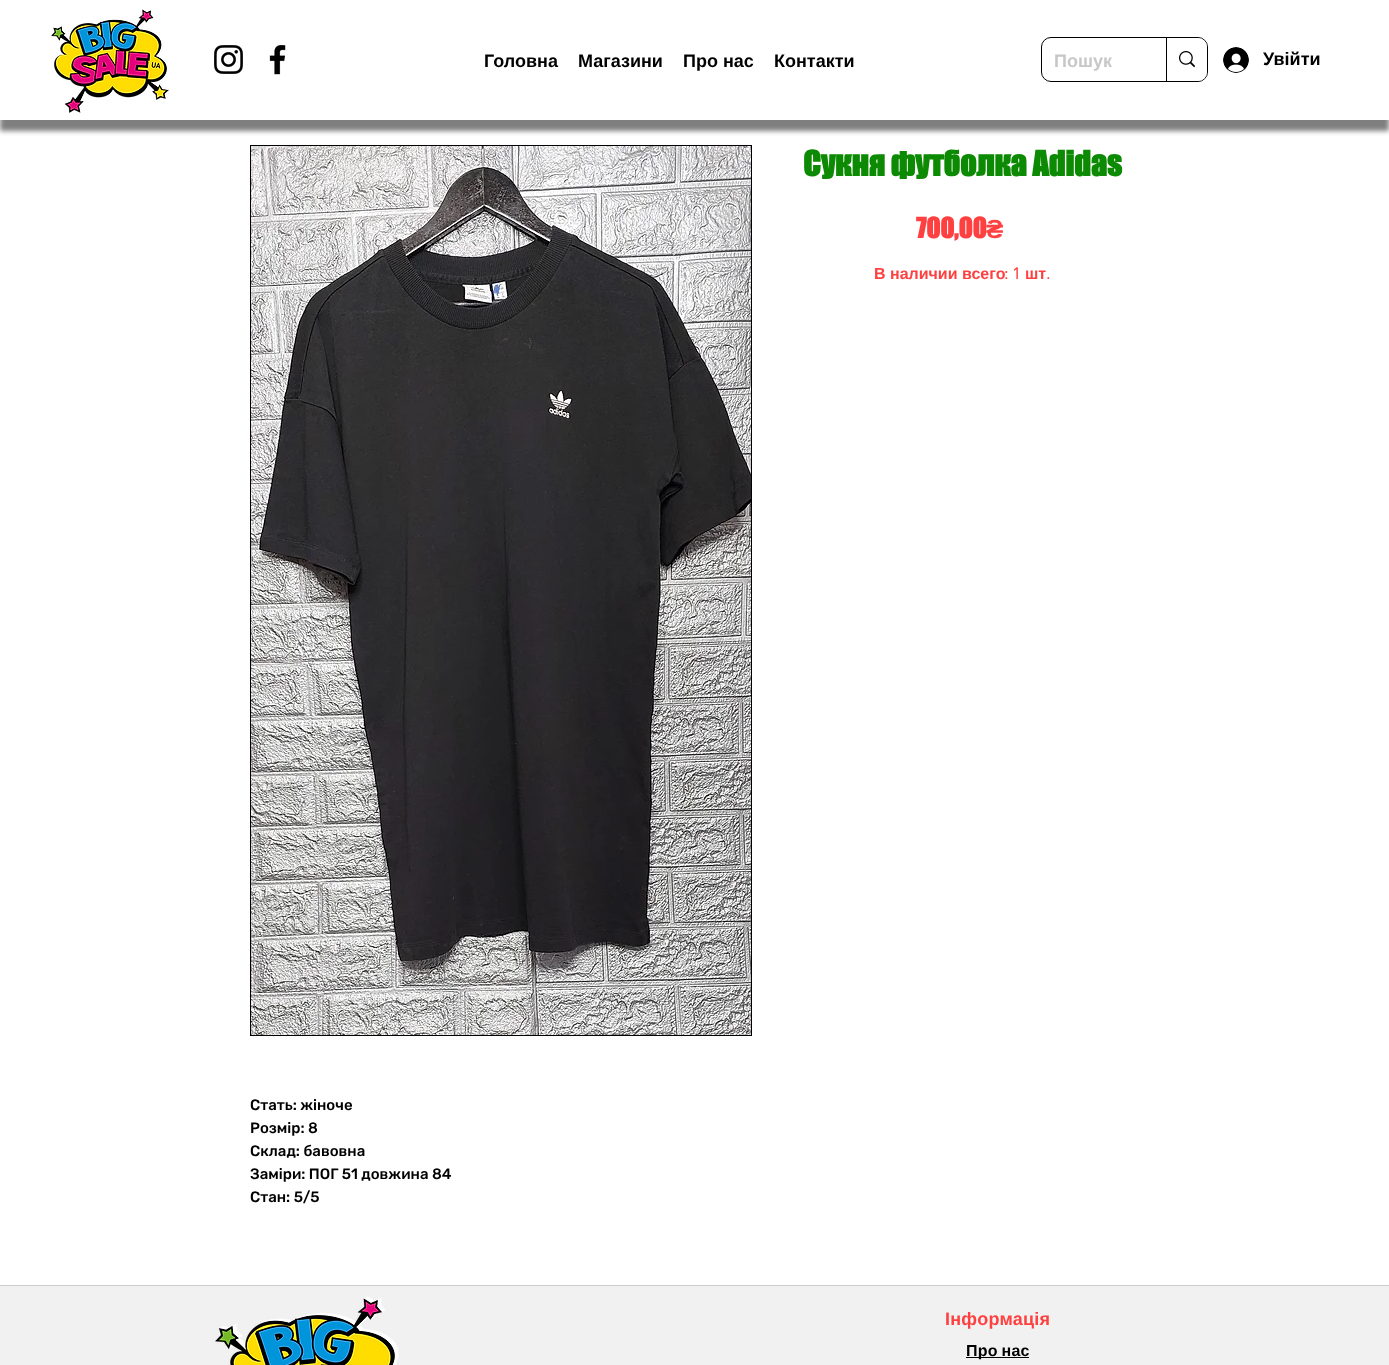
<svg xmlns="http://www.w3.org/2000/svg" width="1389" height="1365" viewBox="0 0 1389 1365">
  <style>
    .t1 { font: bold 18px Liberation Sans; fill: #000; }
    .t2 { font: bold 18px Liberation Sans; fill: #c7c7c7; }
    .t3 { font: bold 32px 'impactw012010'; fill: #0d8a03; }
    .t4 { font: bold 26px 'impactw012010'; fill: #ff4040; }
    .t5 { font: bold 26px Liberation Sans; fill: #ff4040; }
    .t6 { font: bold 16px Liberation Sans; fill: #ff4040; }
    .t7 { font: bold 16px 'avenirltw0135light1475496'; fill: #ff4040; }
    .t8 { font: 500 15px Rubik; fill: #000; }
    .t9 { font: bold 18px Liberation Sans; letter-spacing: 0.25px; fill: #ff4040; }
    .t10 { font: bold 16px Liberation Sans; letter-spacing: 0.25px; fill: #000; }
  </style>
  <rect width="100%" height="100%" fill="#fff"/>
  <rect x="0" y="11" width="1389" height="120" fill="#00000080" filter="blur(2.5px)"/>
  <rect x="0" y="6" width="1389" height="114" fill="#fff"/>
  <image x="51" y="8" width="118" height="105" href="images/1.png"/>
  <image x="214" y="45" width="29" height="29" href="images/2.png"/>
  <image x="269" y="45" width="17" height="30" href="images/3.png"/>
  <text x="484" y="67" class="t1">Головна</text>
  <text x="578" y="67" class="t1">Магазини</text>
  <text x="683" y="67" class="t1">Про нас</text>
  <text x="774" y="67" class="t1">Контакти</text>
  <rect x="1041.5" y="37.5" width="166" height="44" rx="9.5" fill="none" stroke="#000"/>
  <text x="1054" y="67" class="t2">Пошук</text>
  <path d="M1166 38H1198C1203 38 1207 42 1207 47V72C1207 77 1203 81 1198 81H1166Z" fill="#ffffffbd"/>
  <rect x="1166" y="38" width="1" height="43" fill="#000"/>
  <image x="1179" y="51" width="16" height="17" href="images/4.png"/>
  <image x="1223" y="47" width="26" height="26" href="images/5.png"/>
  <text x="1263" y="65" class="t1">Увійти</text>
  <text x="803" y="176" class="t3">Сукня футболка Adidas</text>
  <text x="916" y="238" class="t4">700,00</text>
  <text x="986" y="238" class="t5">₴</text>
  <text x="874" y="279" class="t6">В наличии всего</text>
  <text x="1004" y="279" class="t7">: 1</text>
  <text x="1025" y="279" class="t6">шт</text>
  <text x="1046" y="279" class="t7">.</text>
  <rect x="250.5" y="145.5" width="501" height="890" fill="none" stroke="#000"/>
  <image x="251" y="146" width="500" height="889" href="images/6.png"/>
  <text x="250" y="1110" class="t8">Стать: жіноче</text>
  <text x="250" y="1133" class="t8">Розмір: 8</text>
  <text x="250" y="1156" class="t8">Склад: бавовна</text>
  <text x="250" y="1179" class="t8">Заміри: ПОГ 51 довжина 84</text>
  <text x="250" y="1202" class="t8">Стан: 5/5</text>
  <rect x="0" y="1286" width="1389" height="79" fill="#f1f1f1"/>
  <rect x="0" y="1285" width="1389" height="1" fill="#cdcdcd"/>
  <image x="215" y="1296" width="184" height="69" href="images/7.png"/>
  <text x="945" y="1325" class="t9">Інформація</text>
  <rect x="966" y="1357" width="63" height="1" fill="#000"/>
  <text x="966" y="1356" word-spacing="-1" class="t10">Про нас</text>
</svg>
